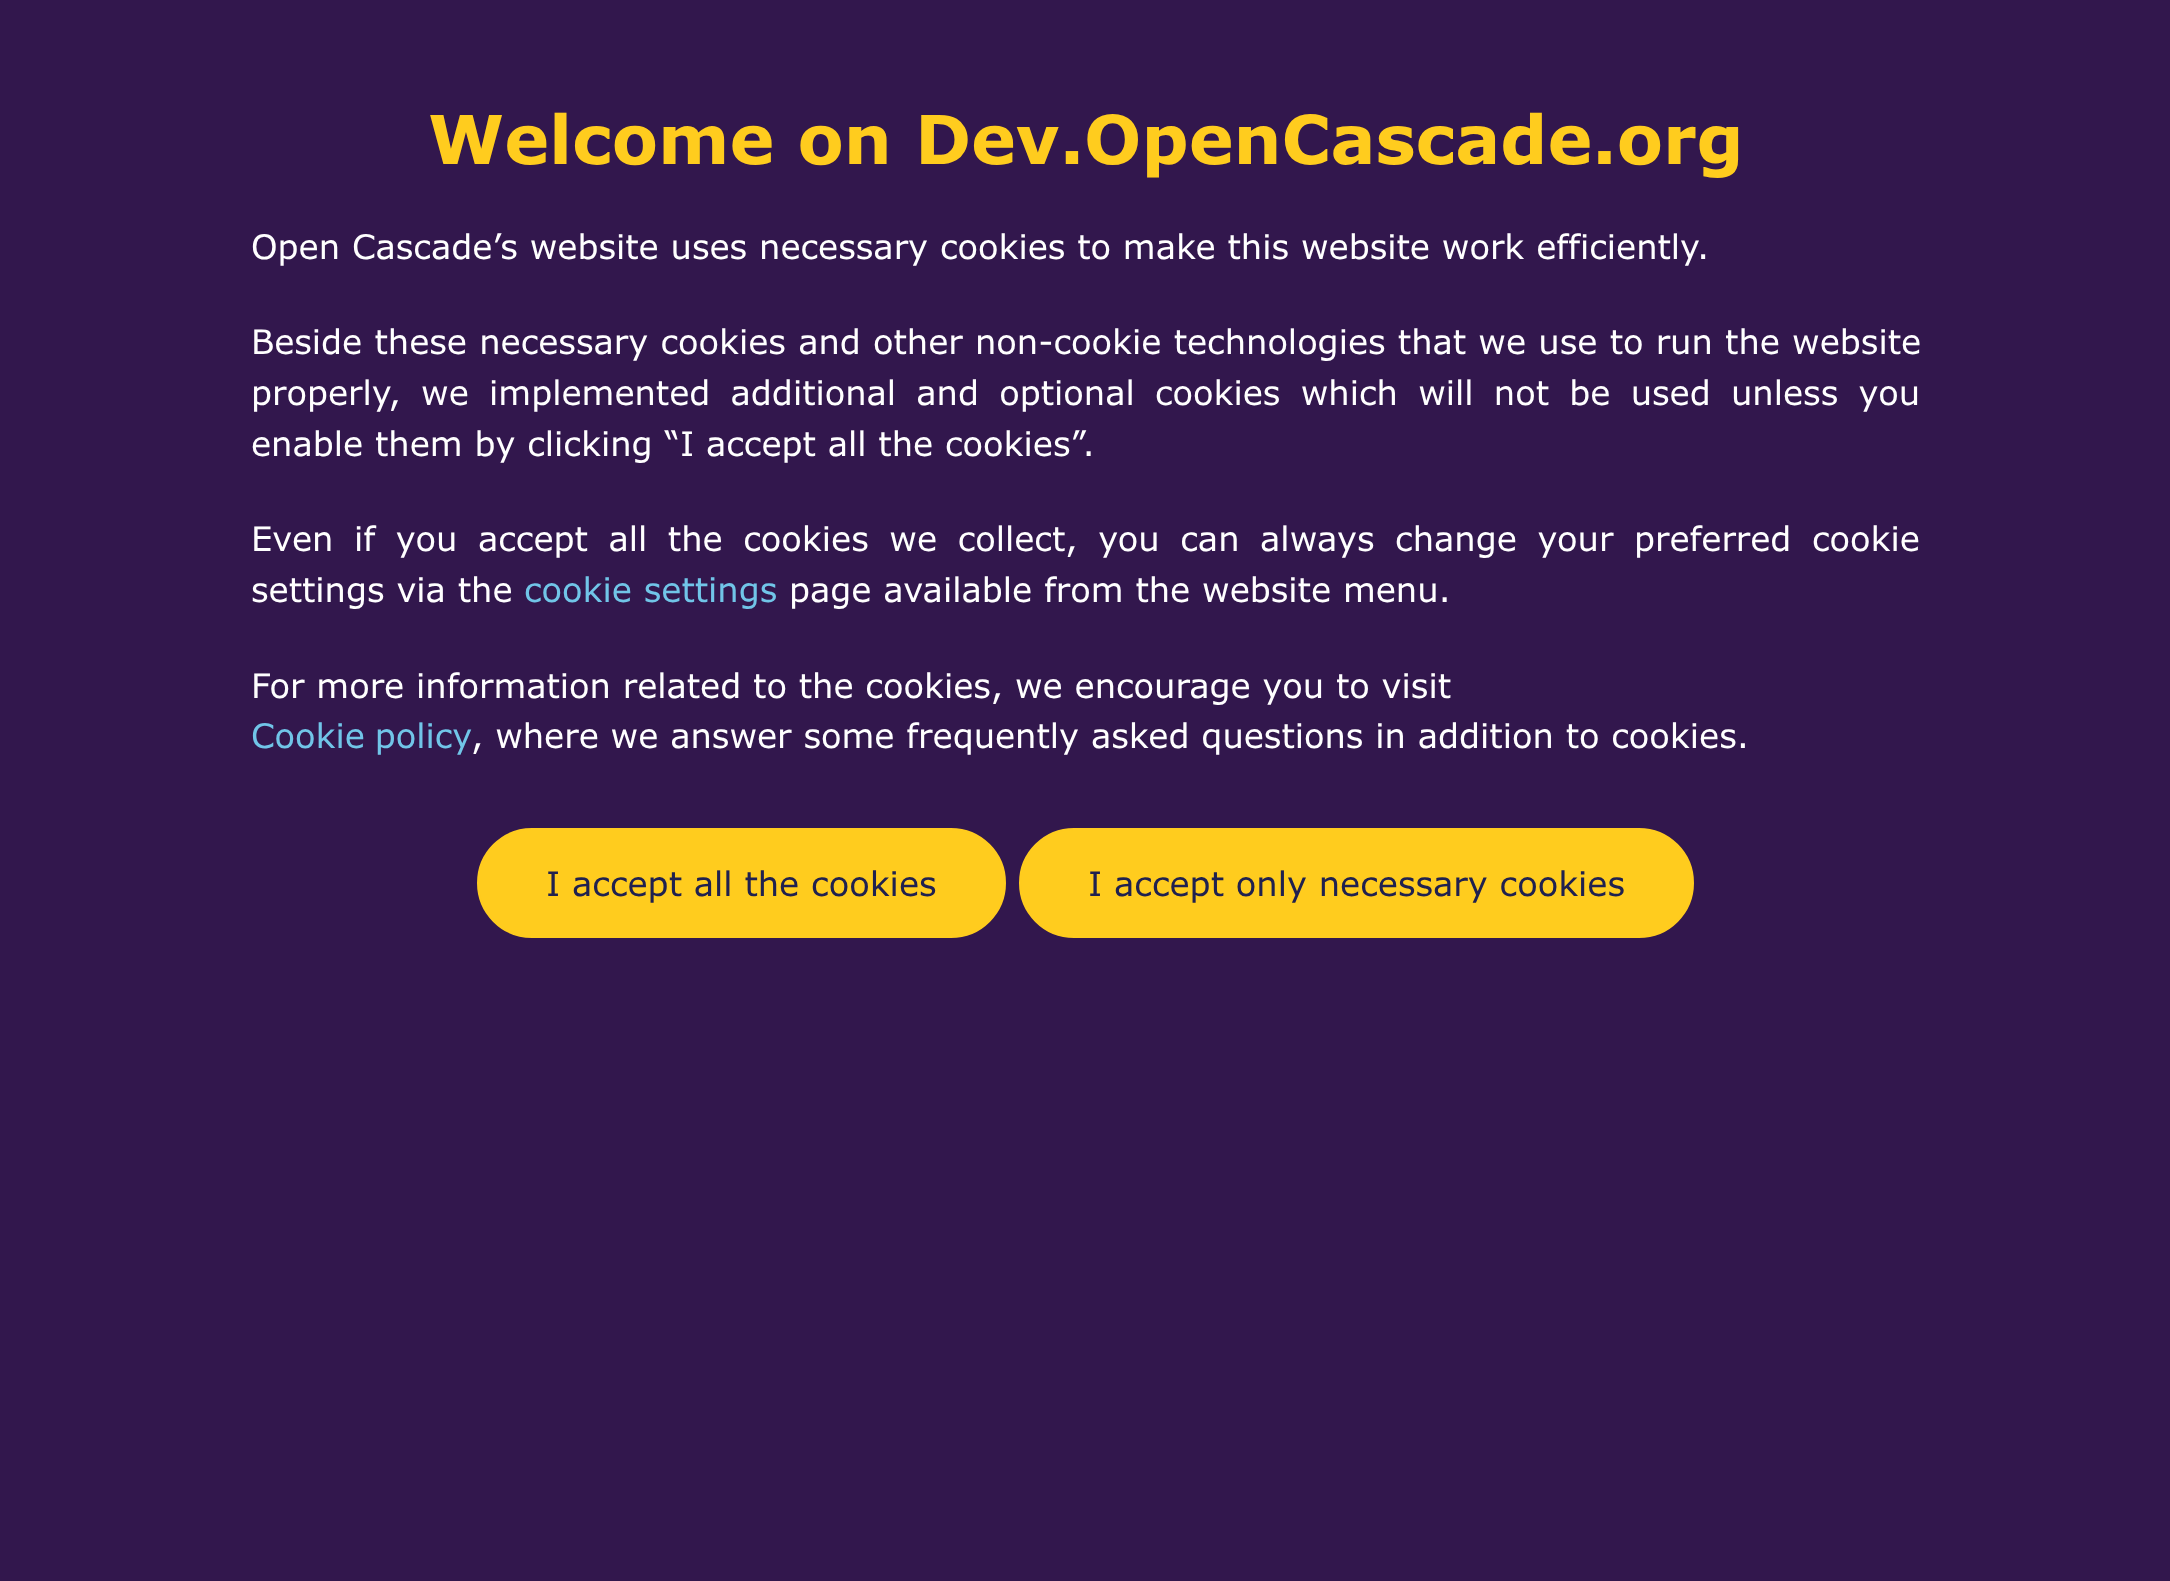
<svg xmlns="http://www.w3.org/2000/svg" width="2170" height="1581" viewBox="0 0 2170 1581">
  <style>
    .t1 { font: bold 67.5px Verdana; fill: #ffcc1e; }
    .t2 { font: 33.75px Verdana; fill: #fff; }
    .t3 { font: 33.75px Verdana; fill: #71c5e8; }
    .t4 { font: 33.75px Verdana; fill: #20214f; }
  </style>
  <rect width="100%" height="100%" fill="#32174d"/>
  <text x="428" y="164" class="t1">Welcome on Dev.OpenCascade.org</text>
  <text x="251" y="259" class="t2">Open Cascade’s website uses necessary cookies to make this website work efficiently.</text>
  <text x="251" y="354" word-spacing="0.4" class="t2">Beside these necessary cookies and other non-cookie technologies that we use to run the website</text>
  <text x="251" y="405" word-spacing="8.4" class="t2">properly, we implemented additional and optional cookies which will not be used unless you</text>
  <text x="251" y="456" class="t2">enable them by clicking “I accept all the cookies”.</text>
  <text x="251" y="551" word-spacing="8.75" class="t2">Even if you accept all the cookies we collect, you can always change your preferred cookie</text>
  <text x="251" y="602" class="t2">settings via the</text>
  <text x="524" y="602" class="t3">cookie settings</text>
  <text x="789" y="602" class="t2">page available from the website menu.</text>
  <text x="251" y="698" class="t2">For more information related to the cookies, we encourage you to visit</text>
  <text x="251" y="748" word-spacing="-2" class="t3">Cookie policy</text>
  <text x="471" y="748" class="t2">, where we answer some frequently asked questions in addition to cookies.</text>
  <rect x="478" y="829" width="527" height="108" rx="54" fill="#ffcc1e" stroke="#ffcc1e" stroke-width="2"/>
  <text x="546" y="896" class="t4">I accept all the cookies</text>
  <rect x="1020" y="829" width="673" height="108" rx="54" fill="#ffcc1e" stroke="#ffcc1e" stroke-width="2"/>
  <text x="1088" y="896" class="t4">I accept only necessary cookies</text>
</svg>
